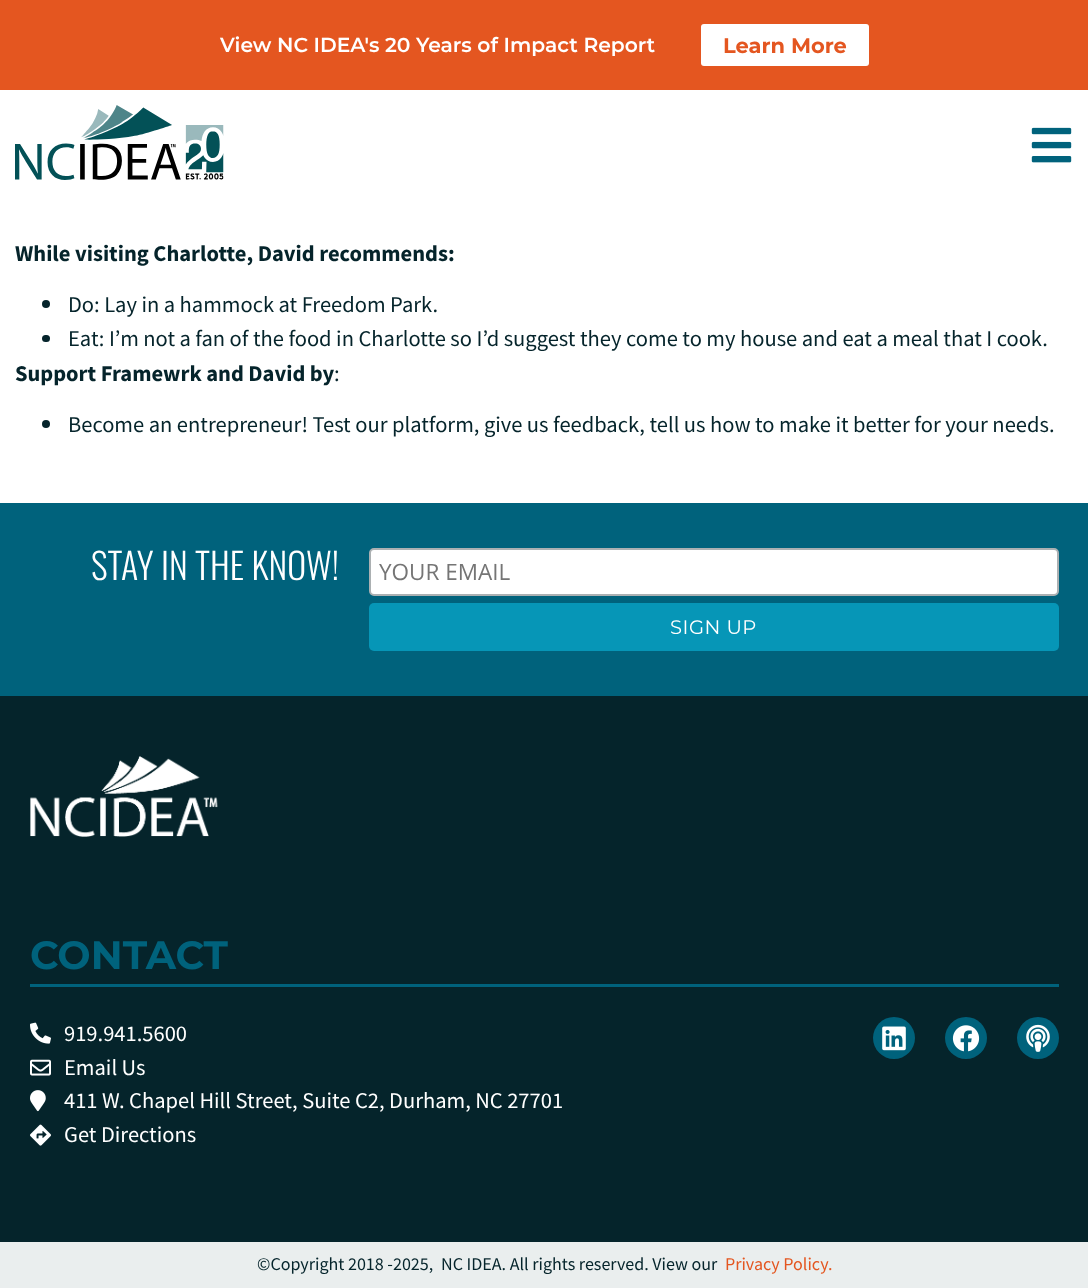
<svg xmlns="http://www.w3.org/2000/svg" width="1088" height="1288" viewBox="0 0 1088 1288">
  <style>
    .t1 { font: 600 20.25px Montserrat; fill: #fff; }
    .t2 { font: bold 21px Montserrat; fill: #e45620; }
    .t3 { font: bold 22.5px Source Sans Pro; fill: #05242b; }
    .t4 { font: 22.5px Source Sans Pro; fill: #05242b; }
    .t5 { font: 300 36px Oswald; fill: #fff; }
    .t6 { font: 22.5px Open Sans; fill: #757575; }
    .t7 { font: 19.5px Montserrat; letter-spacing: 0.5px; fill: #fff; }
    .t8 { font: bold 39.5px Montserrat; fill: #00627c; }
    .t9 { font: 22.5px 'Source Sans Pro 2'; fill: #fff; }
    .t10 { font: 18px Source Sans Pro; fill: #05242b; }
    .t11 { font: 18px Source Sans Pro; fill: #e45620; }
  </style>
  <rect width="100%" height="100%" fill="#fff"/>
  <rect x="0" y="0" width="1088" height="90" fill="#e45620"/>
  <text x="220" y="52" class="t1">View NC IDEA's 20 Years of Impact Report</text>
  <rect x="701" y="24" width="168" height="42" rx="3" fill="#fff"/>
  <text x="723" y="53" class="t2">Learn More</text>
  <image x="15" y="105" width="209" height="75" href="images/1.png"/>
  <image x="1031" y="127" width="41" height="36" href="images/2.png"/>
  <text x="15" y="261" class="t3">While visiting Charlotte, David recommends:</text>
  <circle cx="46" cy="304" r="4" fill="#05242b"/>
  <text x="68" y="312" class="t4">Do: Lay in a hammock at Freedom Park.</text>
  <rect x="42" y="335" width="8" height="7" rx="3.5" fill="#05242b"/>
  <text x="68" y="346" class="t4">Eat: I’m not a fan of the food in Charlotte so I’d suggest they come to my house and eat a meal that I cook.</text>
  <text x="15" y="381" class="t3">Support Framewrk and David by</text>
  <text x="334" y="381" class="t4">:</text>
  <circle cx="46" cy="424" r="4" fill="#05242b"/>
  <text x="68" y="432" class="t4">Become an entrepreneur! Test our platform, give us feedback, tell us how to make it better for your needs.</text>
  <rect x="0" y="503" width="1088" height="193" fill="#00627c"/>
  <text x="91" y="580" class="t5">STAY IN THE KNOW!</text>
  <rect x="370" y="549" width="688" height="46" rx="4" fill="#fff" stroke="#abb0b2" stroke-width="2"/>
  <text x="379" y="580" class="t6">YOUR EMAIL</text>
  <rect x="369" y="603" width="690" height="48" rx="5" fill="#0696b7"/>
  <text x="670" y="634" class="t7">SIGN UP</text>
  <rect x="0" y="696" width="1088" height="546" fill="#05242b"/>
  <image x="30" y="756" width="188" height="81" href="images/3.png"/>
  <text x="30" y="969" class="t8">CONTACT</text>
  <rect x="30" y="984" width="1029" height="3" fill="#00627c"/>
  <image x="30" y="1022" width="21" height="22" href="images/4.png"/>
  <text x="64" y="1041" class="t9">919.941.5600</text>
  <image x="30" y="1059" width="21" height="17" href="images/5.png"/>
  <text x="64" y="1075" class="t9">Email Us</text>
  <image x="30" y="1090" width="16" height="22" href="images/6.png"/>
  <text x="64" y="1108" class="t9">411 W. Chapel Hill Street, Suite C2, Durham, NC 27701</text>
  <image x="30" y="1124" width="21" height="22" href="images/7.png"/>
  <text x="64" y="1142" class="t9">Get Directions</text>
  <circle cx="894" cy="1038" r="21" fill="#00627c"/>
  <image x="882" y="1026" width="24" height="25" href="images/8.png"/>
  <circle cx="966" cy="1038" r="21" fill="#00627c"/>
  <image x="952" y="1025" width="28" height="27" href="images/9.png"/>
  <circle cx="1038" cy="1038" r="21" fill="#00627c"/>
  <image x="1026" y="1024" width="24" height="28" href="images/10.png"/>
  <rect x="0" y="1242" width="1088" height="46" fill="#eaeeee"/>
  <text x="257" y="1270" class="t10">©Copyright 2018 -2025,</text>
  <text x="441" y="1270" class="t10">NC IDEA. All rights reserved. View our</text>
  <text x="725" y="1270" class="t11">Privacy Policy.</text>
</svg>
